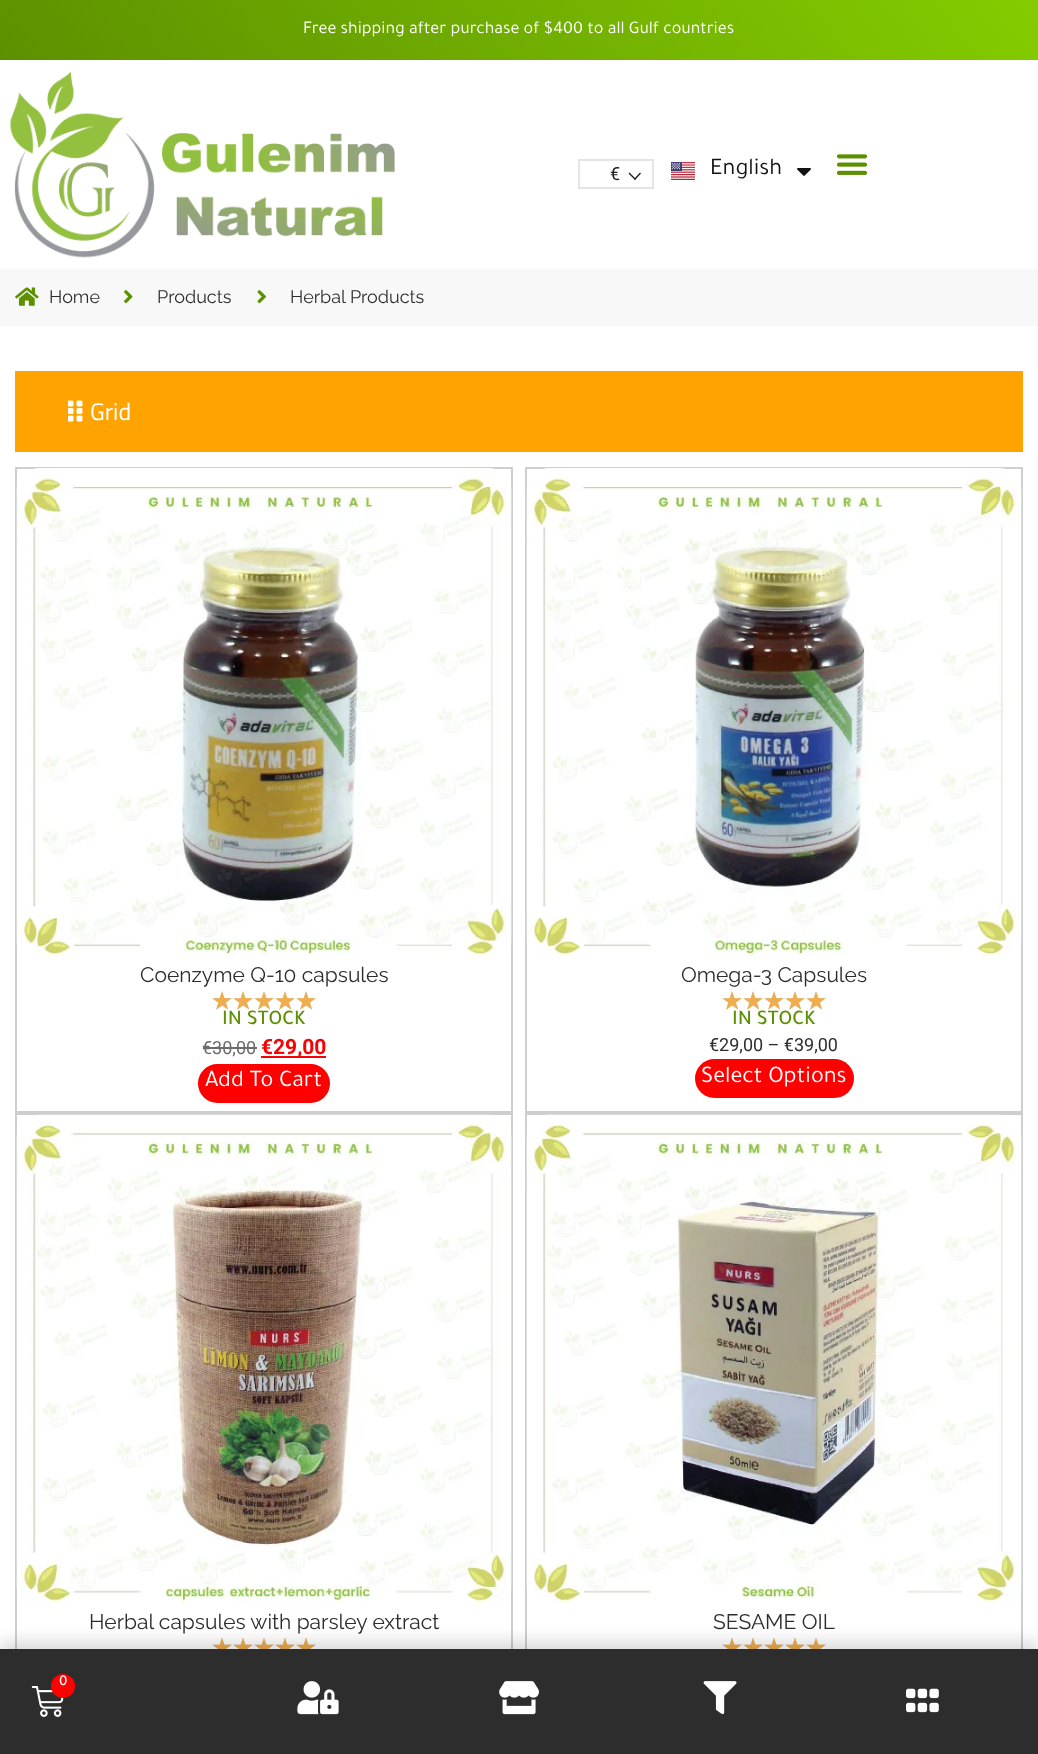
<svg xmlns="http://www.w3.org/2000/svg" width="1038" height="1754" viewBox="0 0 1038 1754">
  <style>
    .t1 { font: 18px Tajawal; fill: #fff; }
    .t2 { font: 18px Roboto; fill: #212121; }
    .t3 { font: 24px Tajawal; fill: #121212; }
    .t4 { font: 18px Raleway; fill: #2d2d2d; }
    .t5 { font: 24px Cairo; fill: #fff; }
    .t6 { font: 21px Raleway; fill: #2d2d2d; }
    .t7 { font: 500 21px Tajawal; fill: #5d9000; }
    .t8 { font: 18px Roboto; fill: #6c6c6c; }
    .t9 { font: bold 21px Roboto; fill: #f60303; }
    .t10 { font: 24px Tajawal; fill: #fff; }
    .t11 { font: 18px Roboto; fill: #2d2d2d; }
    .t12 { font: 500 15px Tajawal; fill: #fff; }
  </style>
  <defs>
    <linearGradient id="g1" gradientUnits="userSpaceOnUse" x1="182" y1="293" x2="856" y2="-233"><stop offset="0" stop-color="#5d9000"/><stop offset="1" stop-color="#84cc00"/></linearGradient>
  </defs>
  <rect width="100%" height="100%" fill="#fff"/>
  <rect x="0" y="0" width="1038" height="60" fill="url(#g1)"/>
  <text x="303" y="33" class="t1">Free shipping after purchase of $400 to all Gulf countries</text>
  <image x="10" y="71" width="385" height="187" href="images/1.png"/>
  <rect x="579" y="160" width="74" height="28" fill="none" stroke="#e5e5e5" stroke-width="2"/>
  <text x="610" y="180" class="t2">€</text>
  <path d="M640 172.5L641 173.5L635 180L634 179Z" fill="#212121"/>
  <path d="M629.5 172.5L636 179L635 180L628.5 173.5Z" fill="#212121"/>
  <image x="671" y="162" width="24" height="18" href="images/2.png"/>
  <text x="710" y="174" class="t3">English</text>
  <image x="797" y="168" width="14" height="8" href="images/3.png"/>
  <image x="836" y="154" width="32" height="21" href="images/4.png"/>
  <rect x="0" y="269" width="1038" height="57" fill="#f8f8f8"/>
  <image x="15" y="287" width="24" height="19" href="images/5.png"/>
  <text x="49" y="303" class="t4">Home</text>
  <image x="124" y="290" width="9" height="14" href="images/6.png"/>
  <text x="157" y="303" class="t4">Products</text>
  <image x="257" y="290" width="9" height="14" href="images/7.png"/>
  <text x="290" y="303" class="t4">Herbal Products</text>
  <rect x="15" y="371" width="1008" height="81" fill="#ffa300"/>
  <image x="68" y="400" width="15" height="22" href="images/8.png"/>
  <text x="90" y="420" class="t5">Grid</text>
  <rect x="16" y="468" width="496" height="644" fill="none" stroke="#cecece" stroke-width="2"/>
  <image x="16" y="468" width="496" height="490" href="images/9.png"/>
  <text x="140" y="982" class="t6">Coenzyme Q-10 capsules</text>
  <image x="212" y="991" width="20" height="19" href="images/10.png"/>
  <image x="212" y="991" width="20" height="19" href="images/11.png"/>
  <image x="233" y="991" width="20" height="19" href="images/10.png"/>
  <image x="233" y="991" width="20" height="19" href="images/11.png"/>
  <image x="254" y="991" width="20" height="19" href="images/10.png"/>
  <image x="254" y="991" width="20" height="19" href="images/11.png"/>
  <image x="275" y="991" width="20" height="19" href="images/10.png"/>
  <image x="275" y="991" width="20" height="19" href="images/11.png"/>
  <image x="296" y="991" width="20" height="19" href="images/10.png"/>
  <image x="296" y="991" width="20" height="19" href="images/11.png"/>
  <text x="222" y="1024" class="t7">IN STOCK</text>
  <text x="202" y="1054" class="t8">€30,00</text>
  <rect x="203" y="1047" width="54" height="2" fill="#6c6c6c"/>
  <rect x="261" y="1056" width="65" height="2" fill="#f60303"/>
  <text x="261" y="1054" class="t9">€29,00</text>
  <rect x="198" y="1064" width="132" height="39" rx="19.5" fill="#f00"/>
  <text x="205" y="1086" class="t10">Add To Cart</text>
  <rect x="526" y="468" width="496" height="644" fill="none" stroke="#cecece" stroke-width="2"/>
  <image x="526" y="468" width="496" height="490" href="images/12.png"/>
  <text x="681" y="982" class="t6">Omega-3 Capsules</text>
  <image x="722" y="991" width="20" height="19" href="images/10.png"/>
  <image x="722" y="991" width="20" height="19" href="images/11.png"/>
  <image x="743" y="991" width="20" height="19" href="images/10.png"/>
  <image x="743" y="991" width="20" height="19" href="images/11.png"/>
  <image x="764" y="991" width="20" height="19" href="images/10.png"/>
  <image x="764" y="991" width="20" height="19" href="images/11.png"/>
  <image x="785" y="991" width="20" height="19" href="images/10.png"/>
  <image x="785" y="991" width="20" height="19" href="images/11.png"/>
  <image x="806" y="991" width="20" height="19" href="images/10.png"/>
  <image x="806" y="991" width="20" height="19" href="images/11.png"/>
  <text x="732" y="1024" class="t7">IN STOCK</text>
  <text x="709" y="1051" class="t11">€29,00 – €39,00</text>
  <rect x="695" y="1059" width="159" height="39" rx="19.5" fill="#f00"/>
  <text x="701" y="1082" class="t10">Select Options</text>
  <rect x="16" y="1114" width="496" height="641" fill="none" stroke="#cecece" stroke-width="2"/>
  <image x="16" y="1114" width="496" height="490" href="images/13.png"/>
  <text x="89" y="1629" class="t6">Herbal capsules with parsley extract</text>
  <image x="212" y="1638" width="20" height="11" href="images/14.png"/>
  <image x="212" y="1638" width="20" height="11" href="images/15.png"/>
  <image x="233" y="1638" width="20" height="11" href="images/14.png"/>
  <image x="233" y="1638" width="20" height="11" href="images/15.png"/>
  <image x="254" y="1638" width="20" height="11" href="images/14.png"/>
  <image x="254" y="1638" width="20" height="11" href="images/15.png"/>
  <image x="275" y="1638" width="20" height="11" href="images/14.png"/>
  <image x="275" y="1638" width="20" height="11" href="images/15.png"/>
  <image x="296" y="1638" width="20" height="11" href="images/14.png"/>
  <image x="296" y="1638" width="20" height="11" href="images/15.png"/>
  <rect x="526" y="1114" width="496" height="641" fill="none" stroke="#cecece" stroke-width="2"/>
  <image x="526" y="1114" width="496" height="491" href="images/16.png"/>
  <text x="713" y="1629" class="t6">SESAME OIL</text>
  <image x="722" y="1638" width="20" height="11" href="images/14.png"/>
  <image x="722" y="1638" width="20" height="11" href="images/15.png"/>
  <image x="743" y="1638" width="20" height="11" href="images/14.png"/>
  <image x="743" y="1638" width="20" height="11" href="images/15.png"/>
  <image x="764" y="1638" width="20" height="11" href="images/14.png"/>
  <image x="764" y="1638" width="20" height="11" href="images/15.png"/>
  <image x="785" y="1638" width="20" height="11" href="images/14.png"/>
  <image x="785" y="1638" width="20" height="11" href="images/15.png"/>
  <image x="806" y="1638" width="20" height="11" href="images/14.png"/>
  <image x="806" y="1638" width="20" height="11" href="images/15.png"/>
  <rect x="0" y="1641" width="1038" height="107" fill="#00000024" filter="blur(7.5px)"/>
  <rect x="0" y="1649" width="1038" height="105" fill="#2d2d2d"/>
  <image x="31" y="1686" width="33" height="31" href="images/17.png"/>
  <circle cx="63" cy="1686" r="12" fill="#f00"/>
  <text x="59" y="1685" class="t12">0</text>
  <image x="297" y="1681" width="42" height="34" href="images/18.png"/>
  <image x="499" y="1681" width="40" height="34" href="images/19.png"/>
  <image x="703" y="1681" width="34" height="34" href="images/20.png"/>
  <image x="906" y="1688" width="33" height="25" href="images/21.png"/>
</svg>
